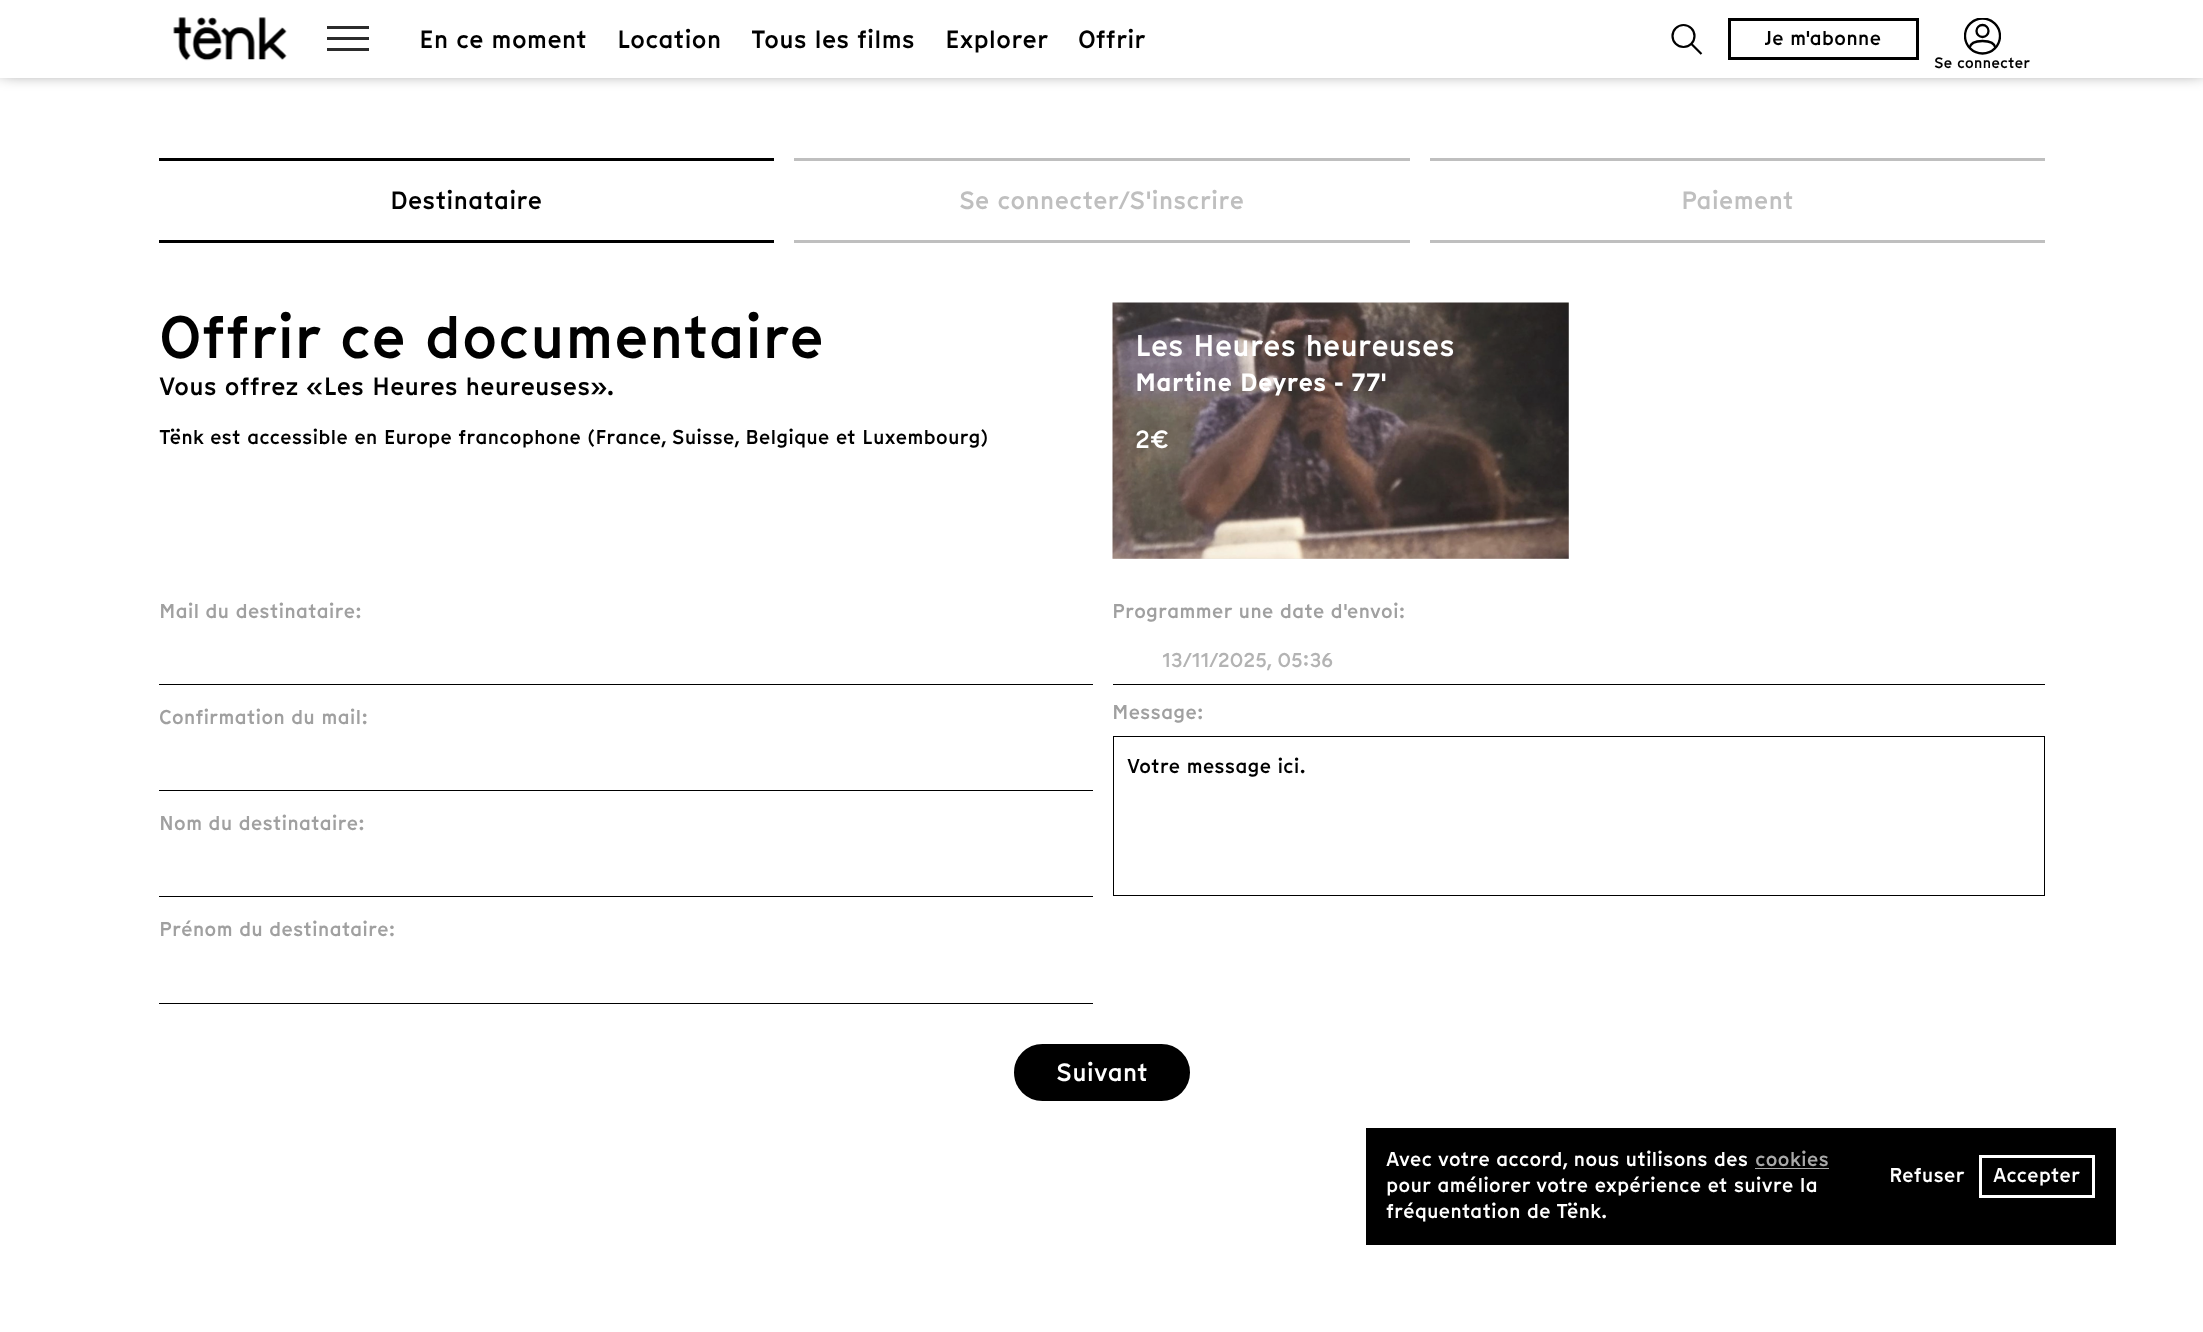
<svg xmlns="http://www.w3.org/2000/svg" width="2203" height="1332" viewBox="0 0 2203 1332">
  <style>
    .t1 { font: 500 25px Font; fill: #000; }
    .t2 { font: 500 20px Font; fill: #000; }
    .t3 { font: 500 15px Font; fill: #000; }
    .t4 { font: 500 25px Font; fill: #bfbfbf; }
    .t5 { font: 500 60px Font; fill: #000; }
    .t6 { font: 500 30px Font; fill: #fff; }
    .t7 { font: bold 25px Font; fill: #fff; }
    .t8 { font: 500 25px Font; fill: #fff; }
    .t9 { font: 500 20px Font; fill: #a0a0a0; }
    .t10 { font: 500 20px Font; fill: #b3b3b3; }
    .t11 { font: 500 20px Font; fill: #fff; }
    .t12 { font: 500 20px Font; fill: #a9a9a9; }
  </style>
  <defs>
    <clipPath id="clip1"><rect x="1964" y="18" width="37" height="37"/></clipPath>
    <clipPath id="clip2"><rect x="1163" y="645" width="868" height="29"/></clipPath>
  </defs>
  <rect width="100%" height="100%" fill="#fff"/>
  <rect x="0" y="-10" width="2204" height="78" fill="#000" filter="blur(9.5px)"/>
  <rect x="0" y="0" width="2203" height="78" fill="#fff"/>
  <image x="173" y="17" width="114" height="44" href="images/1.png"/>
  <rect x="327" y="26" width="42" height="3" fill="#2b2b2b"/>
  <rect x="327" y="37" width="42" height="3" fill="#2b2b2b"/>
  <rect x="327" y="48" width="42" height="3" fill="#2b2b2b"/>
  <text x="419" y="48" class="t1">En ce moment</text>
  <text x="617" y="48" class="t1">Location</text>
  <text x="751" y="48" class="t1">Tous les films</text>
  <text x="945" y="48" class="t1">Explorer</text>
  <text x="1078" y="48" class="t1">Offrir</text>
  <circle cx="1683.5" cy="36" r="11" fill="none" stroke="#000" stroke-width="2.2"/>
  <path d="M1691.5 44L1701.5 54" fill="none" stroke="#000" stroke-width="2.2"/>
  <rect x="1729.5" y="19.5" width="188" height="39" fill="none" stroke="#000" stroke-width="3"/>
  <text x="1764" y="45" class="t2">Je m'abonne</text>
  <g clip-path="url(#clip1)">
    <circle cx="1982.5" cy="36" r="17.5" fill="none" stroke="#000" stroke-width="2.3"/>
  </g>
  <path d="M1995.5 48C1994.5 42 1988 41 1982.5 41C1977 41 1970.5 42 1969.5 48" fill="none" stroke="#000" stroke-width="2.3"/>
  <circle cx="1982.5" cy="31" r="6" fill="none" stroke="#000" stroke-width="2.3"/>
  <text x="1934" y="68" class="t3">Se connecter</text>
  <rect x="159" y="158" width="615" height="3" fill="#000"/>
  <rect x="159" y="240" width="615" height="3" fill="#000"/>
  <text x="390" y="209" class="t1">Destinataire</text>
  <rect x="794" y="158" width="616" height="3" fill="#bfbfbf"/>
  <rect x="794" y="240" width="616" height="3" fill="#bfbfbf"/>
  <text x="959" y="209" class="t4">Se connecter/S'inscrire</text>
  <rect x="1430" y="158" width="615" height="3" fill="#bfbfbf"/>
  <rect x="1430" y="240" width="615" height="3" fill="#bfbfbf"/>
  <text x="1681" y="209" class="t4">Paiement</text>
  <text x="159" y="358" class="t5">Offrir ce documentaire</text>
  <text x="159" y="395" class="t1">Vous offrez «Les Heures heureuses».</text>
  <text x="159" y="444" class="t2">Tënk est accessible en Europe francophone (France, Suisse, Belgique et Luxembourg)</text>
  <rect x="1113" y="303" width="456" height="256" fill="#e7e7e7"/>
  <image x="1112" y="302" width="457" height="257" href="images/2.png"/>
  <text x="1135" y="356" class="t6">Les Heures heureuses</text>
  <text x="1135" y="391" class="t7">Martine Deyres - 77'</text>
  <text x="1135" y="448" class="t8">2€</text>
  <text x="159" y="618" class="t9">Mail du destinataire:</text>
  <rect x="159" y="684" width="934" height="1" fill="#000"/>
  <text x="159" y="724" class="t9">Confirmation du mail:</text>
  <rect x="159" y="790" width="934" height="1" fill="#000"/>
  <text x="159" y="830" class="t9">Nom du destinataire:</text>
  <rect x="159" y="896" width="934" height="1" fill="#000"/>
  <text x="159" y="936" class="t9">Prénom du destinataire:</text>
  <rect x="159" y="1003" width="934" height="1" fill="#000"/>
  <text x="1112" y="618" class="t9">Programmer une date d'envoi:</text>
  <rect x="1113" y="684" width="932" height="1" fill="#000"/>
  <g clip-path="url(#clip2)">
    <text x="1162" y="667" class="t10">13/11/2025, 05:36</text>
  </g>
  <text x="1112" y="719" class="t9">Message:</text>
  <rect x="1113.5" y="736.5" width="931" height="159" fill="none" stroke="#000"/>
  <text x="1127" y="773" class="t2">Votre message ici.</text>
  <rect x="1015.5" y="1045.5" width="173" height="54" rx="27" fill="#000" stroke="#000" stroke-width="3"/>
  <text x="1056" y="1081" class="t8">Suivant</text>
  <rect x="1366" y="1128" width="750" height="117" fill="#000"/>
  <text x="1386" y="1166" class="t11">Avec votre accord, nous utilisons des</text>
  <text x="1755" y="1166" class="t12">cookies</text>
  <rect x="1755" y="1168" width="74" height="1" fill="#a9a9a9"/>
  <text x="1386" y="1192" class="t11">pour améliorer votre expérience et suivre la</text>
  <text x="1386" y="1218" class="t11">fréquentation de Tënk.</text>
  <text x="1889" y="1182" class="t11">Refuser</text>
  <rect x="1980.5" y="1156.5" width="113" height="40" fill="none" stroke="#fff" stroke-width="3"/>
  <text x="1993" y="1182" class="t11">Accepter</text>
</svg>
